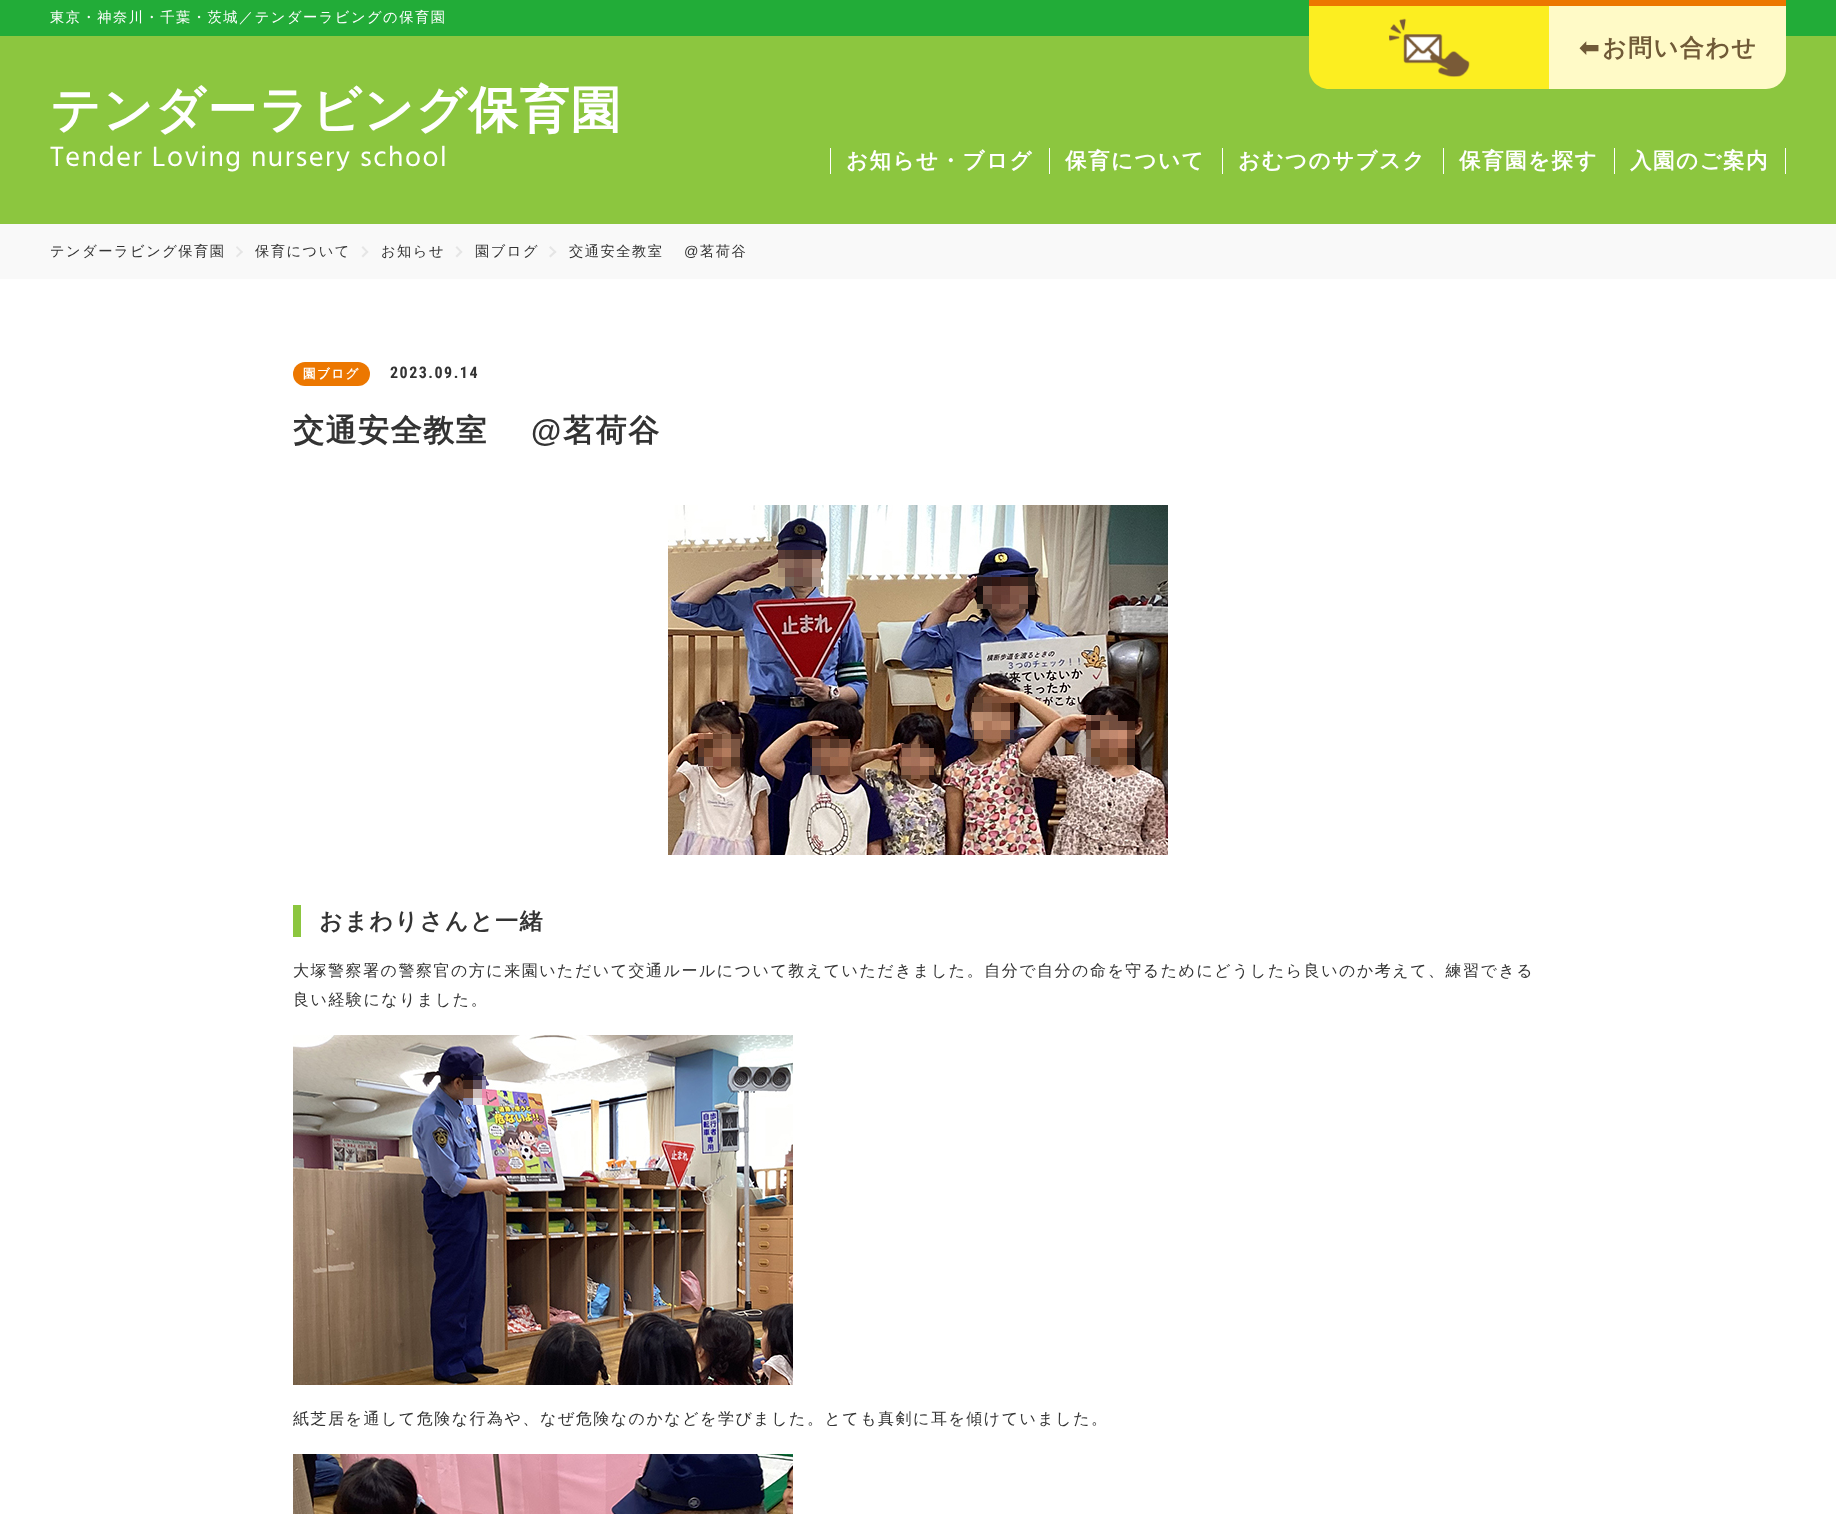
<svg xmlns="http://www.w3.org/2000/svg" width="1836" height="1514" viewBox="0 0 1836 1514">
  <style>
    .t1 { font: 500 14.25px WenQuanYi Zen Hei; letter-spacing: 1.5px; fill: #fff; }
    .t2 { font: bold 24px DejaVu Sans; letter-spacing: 1.5px; fill: #705a37; }
    .t3 { font: bold 24px WenQuanYi Zen Hei; letter-spacing: 1.5px; fill: #705a37; }
    .t4 { font: bold 49.75px WenQuanYi Zen Hei; letter-spacing: 1.5px; fill: #fff; }
    .t5 { font: 28.5px Hind; letter-spacing: 1.5px; fill: #fff; }
    .t6 { font: bold 21.5px WenQuanYi Zen Hei; letter-spacing: 1.5px; fill: #fff; }
    .t7 { font: 500 14.25px WenQuanYi Zen Hei; letter-spacing: 1.5px; fill: #333; }
    .t8 { font: 14.25px Liberation Sans; letter-spacing: 1.5px; fill: #333; }
    .t9 { font: bold 12.5px WenQuanYi Zen Hei; letter-spacing: 1.5px; fill: #fff; }
    .t10 { font: bold 16px Roboto Condensed; letter-spacing: 1.5px; fill: #333; }
    .t11 { font: bold 31px WenQuanYi Zen Hei; letter-spacing: 1.5px; fill: #333; }
    .t12 { font: bold 31px Liberation Sans; letter-spacing: 1.5px; fill: #333; }
    .t13 { font: bold 23.1px WenQuanYi Zen Hei; letter-spacing: 1.5px; fill: #333; }
    .t14 { font: 500 16px WenQuanYi Zen Hei; letter-spacing: 1.5px; fill: #333; }
  </style>
  <rect width="100%" height="100%" fill="#fff"/>
  <rect x="0" y="0" width="1836" height="36" fill="#22ac38"/>
  <text x="50" y="22" class="t1">東京・神奈川・千葉・茨城／テンダーラビングの保育園</text>
  <rect x="1309" y="0" width="477" height="6" fill="#ec7700"/>
  <rect x="0" y="36" width="1836" height="188" fill="#8cc63f"/>
  <path d="M1309 6H1549V89H1329C1318 89 1309 80 1309 69Z" fill="#fcee21"/>
  <image x="1389" y="18" width="81" height="59" href="images/1.png"/>
  <path d="M1549 6H1786V69C1786 80 1777 89 1766 89H1549Z" fill="#fffac7"/>
  <text x="1579" y="56" class="t2">⬅︎</text>
  <text x="1602" y="56" class="t3">お問い合わせ</text>
  <text x="50" y="127" class="t4">テンダーラビング保育園</text>
  <text x="50" y="166" class="t5">Tender Loving nursery school</text>
  <rect x="830" y="148" width="1" height="26" fill="#fff"/>
  <text x="846" y="168" class="t6">お知らせ・ブログ</text>
  <rect x="1049" y="148" width="1" height="26" fill="#fff"/>
  <text x="1065" y="168" class="t6">保育について</text>
  <rect x="1222" y="148" width="1" height="26" fill="#fff"/>
  <text x="1238" y="168" class="t6">おむつのサブスク</text>
  <rect x="1443" y="148" width="1" height="26" fill="#fff"/>
  <text x="1459" y="168" class="t6">保育園を探す</text>
  <rect x="1614" y="148" width="1" height="26" fill="#fff"/>
  <text x="1630" y="168" class="t6">入園のご案内</text>
  <rect x="1785" y="148" width="1" height="26" fill="#fff"/>
  <rect x="0" y="224" width="1836" height="55" fill="#f9f9f9"/>
  <text x="50" y="256" class="t7">テンダーラビング保育園</text>
  <path d="M237 246L243 252L241.5 253L236 247.5Z" fill="#e5e5e5"/>
  <path d="M241.5 250.5L243 252L237 257.5L236 256Z" fill="#e5e5e5"/>
  <text x="255" y="256" class="t7">保育について</text>
  <path d="M363 246L368.5 252L367 253L361.5 247.5Z" fill="#e5e5e5"/>
  <path d="M367 250.5L368.5 252L363 257.5L361.5 256Z" fill="#e5e5e5"/>
  <text x="381" y="256" class="t7">お知らせ</text>
  <path d="M457 246L462.5 252L461 253L455.5 247.5Z" fill="#e5e5e5"/>
  <path d="M461 250.5L462.5 252L457 257.5L455.5 256Z" fill="#e5e5e5"/>
  <text x="475" y="256" class="t7">園ブログ</text>
  <path d="M550.5 246L556.5 252L555 253L549 247.5Z" fill="#e5e5e5"/>
  <path d="M555 250.5L556.5 252L550.5 257.5L549 256Z" fill="#e5e5e5"/>
  <text x="569" y="256" class="t7">交通安全教室</text>
  <text x="684" y="256" class="t8">@</text>
  <text x="700" y="256" class="t7">茗荷谷</text>
  <rect x="293" y="362" width="77" height="24" rx="12" fill="#ec7700"/>
  <text x="303" y="378" class="t9">園ブログ</text>
  <text x="390" y="378" class="t10">2023.09.14</text>
  <text x="293" y="441" class="t11">交通安全教室</text>
  <text x="531" y="441" class="t12">@</text>
  <text x="563" y="441" class="t11">茗荷谷</text>
  <image x="668" y="505" width="500" height="350" href="images/2.png"/>
  <rect x="293" y="905" width="8" height="32" fill="#8cc63f"/>
  <text x="319" y="929" class="t13">おまわりさんと一緒</text>
  <text x="293" y="976" class="t14">大塚警察署の警察官の方に来園いただいて交通ルールについて教えていただきました。自分で自分の命を守るためにどうしたら良いのか考えて、練習できる</text>
  <text x="293" y="1005" class="t14">良い経験になりました。</text>
  <image x="293" y="1035" width="500" height="350" href="images/3.png"/>
  <text x="293" y="1424" class="t14">紙芝居を通して危険な行為や、なぜ危険なのかなどを学びました。とても真剣に耳を傾けていました。</text>
  <image x="293" y="1454" width="500" height="60" href="images/4.png"/>
</svg>
